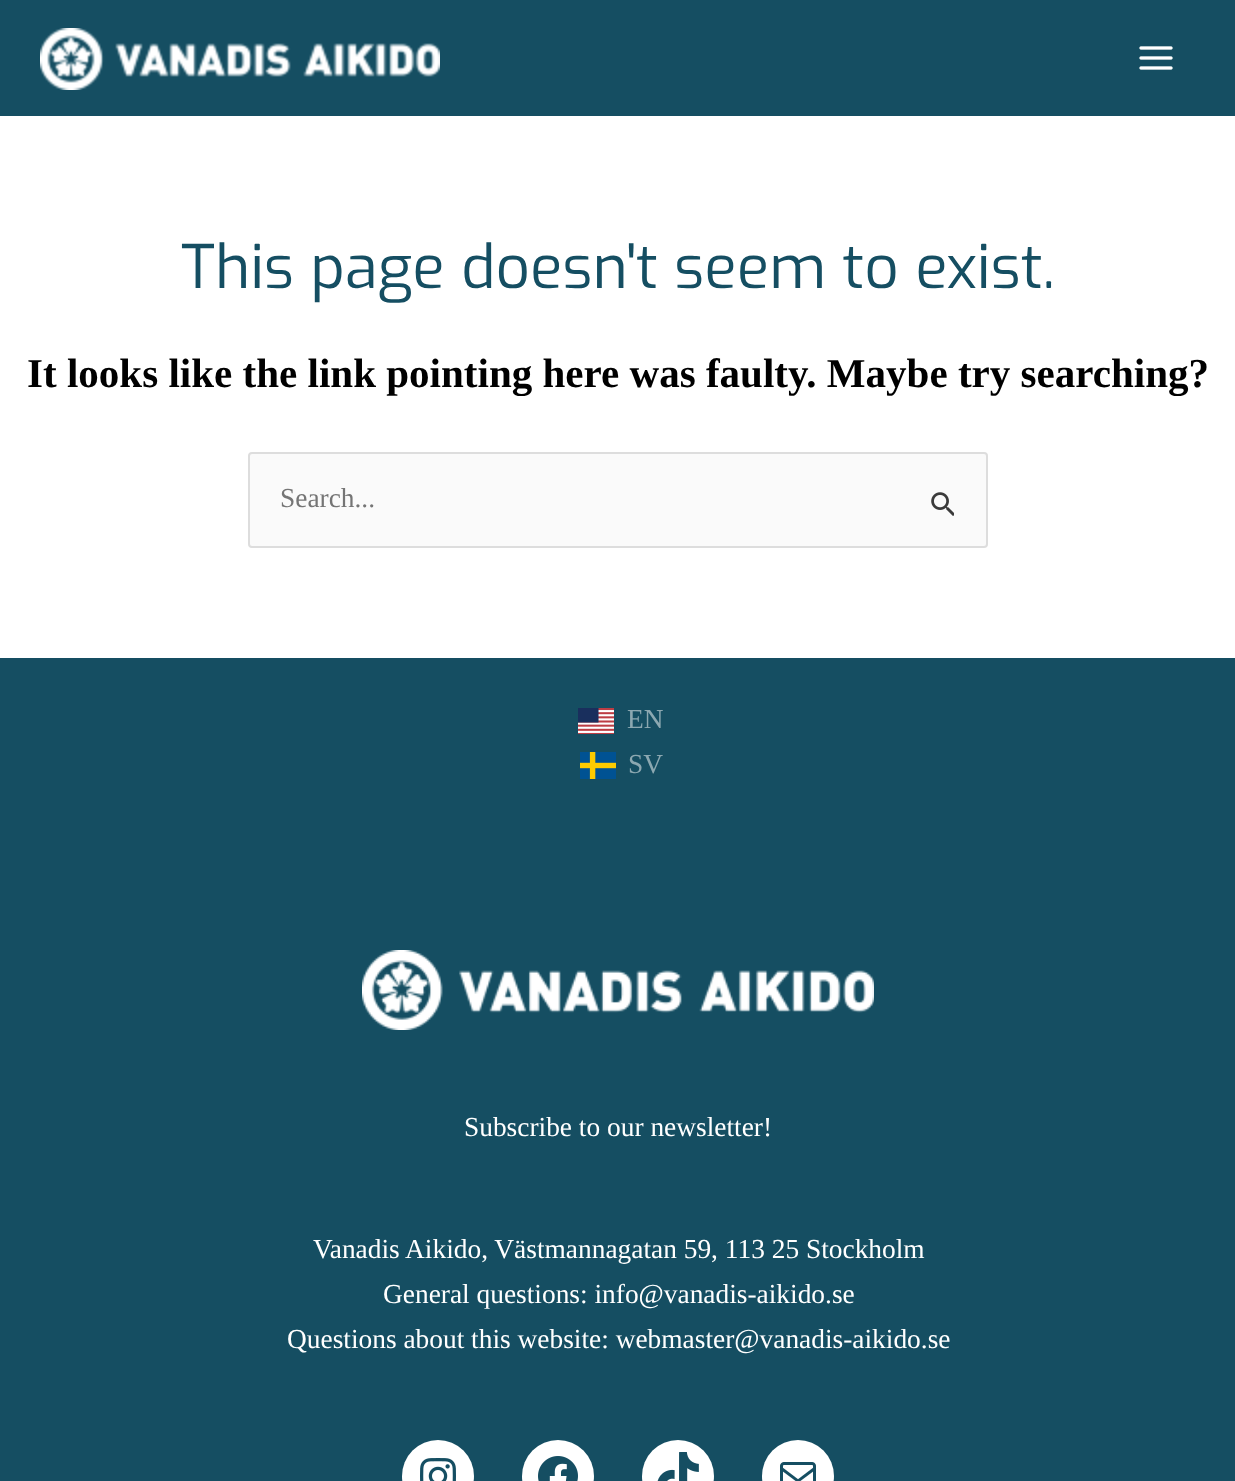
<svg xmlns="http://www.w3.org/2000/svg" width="1235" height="1481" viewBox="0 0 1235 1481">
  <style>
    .t1 { font: 60px Exo; fill: #154e62; }
    .t2 { font: bold 41.05px Liberation Serif; fill: #000; }
    .t3 { font: 27.4px Liberation Serif; fill: #757575; }
    .t4 { font: 27.4px Liberation Serif; fill: #8ca8b1; }
    .t5 { font: 27.4px Liberation Serif; fill: #fff; }
  </style>
  <rect width="100%" height="100%" fill="#fff"/>
  <rect x="0" y="0" width="1235" height="116" fill="#154e62"/>
  <image x="40" y="28" width="400" height="62" href="images/1.png"/>
  <image x="1139" y="46" width="34" height="24" href="images/2.png"/>
  <text x="181" y="288" class="t1">This page doesn't seem to exist.</text>
  <text x="27" y="387" class="t2">It looks like the link pointing here was faulty. Maybe try searching?</text>
  <rect x="249" y="453" width="738" height="94" rx="3" fill="#fafafa" stroke="#ddd" stroke-width="2"/>
  <text x="280" y="507" class="t3">Search...</text>
  <image x="931" y="492" width="23" height="24" href="images/3.png"/>
  <rect x="0" y="658" width="1235" height="200" fill="#154e62"/>
  <image x="578" y="708" width="36" height="26" href="images/4.png"/>
  <text x="627" y="728" class="t4">EN</text>
  <image x="580" y="752" width="36" height="27" href="images/5.png"/>
  <text x="628" y="773" class="t4">SV</text>
  <rect x="0" y="858" width="1235" height="623" fill="#154e62"/>
  <image x="362" y="950" width="512" height="80" href="images/6.png"/>
  <text x="464" y="1136" class="t5">Subscribe to our newsletter!</text>
  <text x="313" y="1258" class="t5">Vanadis Aikido, Västmannagatan 59, 113 25 Stockholm</text>
  <text x="383" y="1303" class="t5">General questions: info@vanadis-aikido.se</text>
  <text x="287" y="1348" class="t5">Questions about this website: webmaster@vanadis-aikido.se</text>
  <circle cx="438" cy="1476" r="36" fill="#fff"/>
  <image x="420" y="1458" width="36" height="23" href="images/7.png"/>
  <circle cx="558" cy="1476" r="36" fill="#fff"/>
  <image x="538" y="1456" width="40" height="25" href="images/8.png"/>
  <circle cx="678" cy="1476" r="36" fill="#fff"/>
  <image x="657" y="1452" width="42" height="29" href="images/9.png"/>
  <circle cx="798" cy="1476" r="36" fill="#fff"/>
  <image x="780" y="1462" width="36" height="19" href="images/10.png"/>
</svg>
